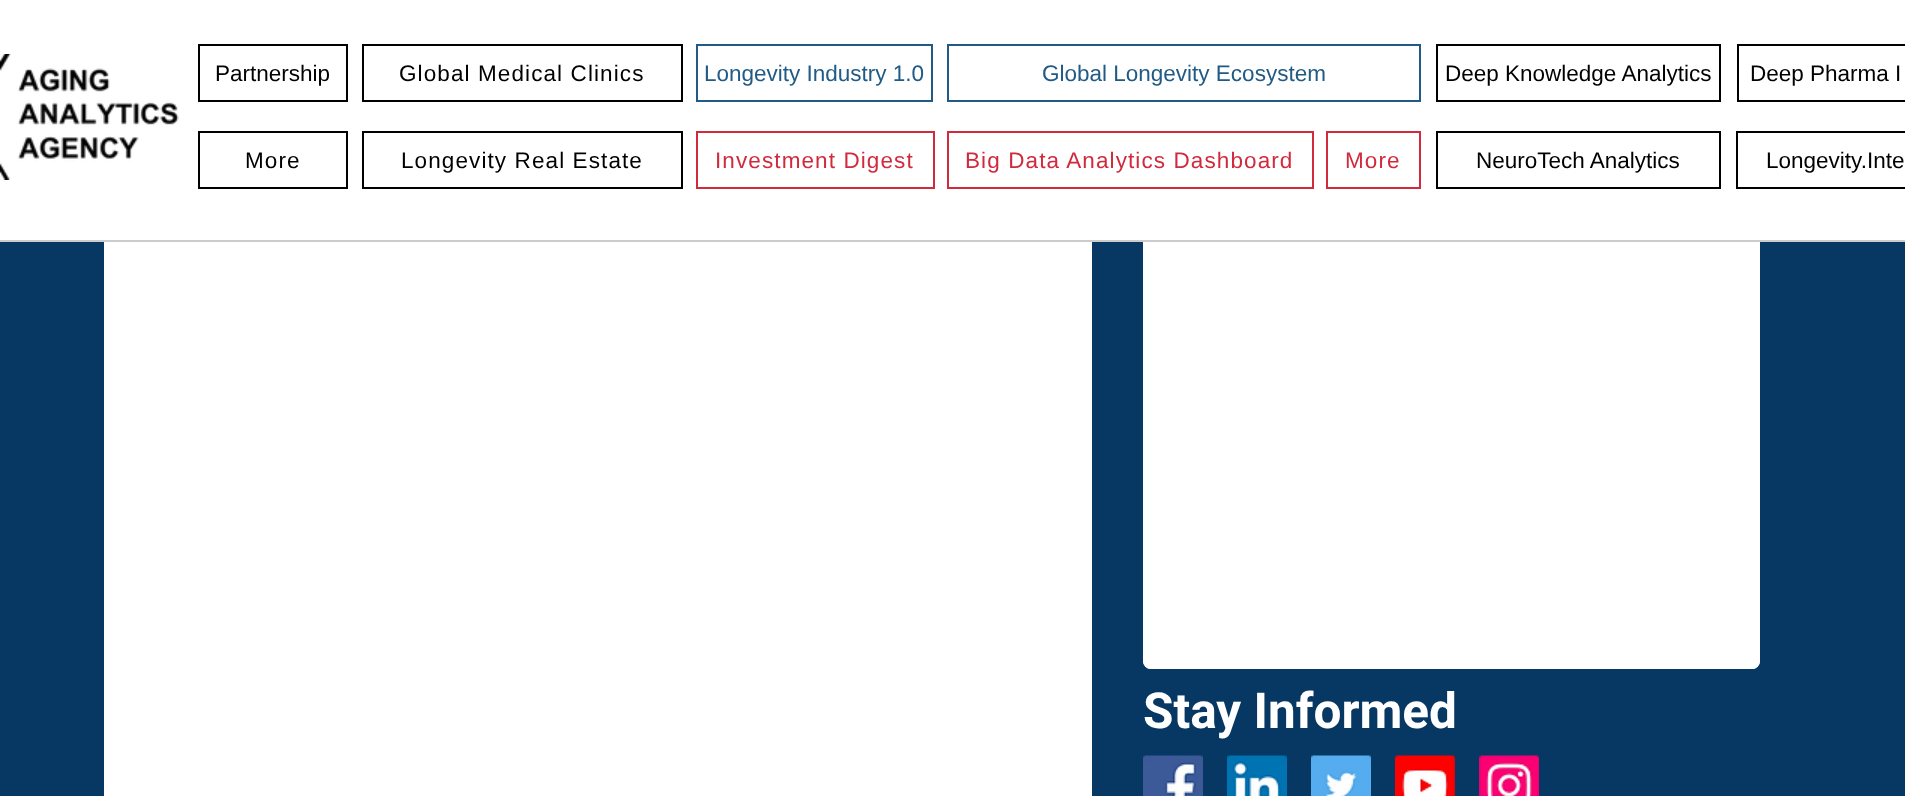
<svg xmlns="http://www.w3.org/2000/svg" width="1905" height="796" viewBox="0 0 1905 796">
  <style>
    .t1 { font: 22.5px Liberation Sans; fill: #000; }
    .t2 { font: 22.5px Liberation Sans; letter-spacing: 1.1px; fill: #000; }
    .t3 { font: 22.5px Liberation Sans; fill: #215b85; }
    .t4 { font: 22.5px Liberation Sans; letter-spacing: 1.1px; fill: #d12a3c; }
    .t5 { font: bold 49.5px Roboto; fill: #fff; }
  </style>
  <rect width="100%" height="100%" fill="#073763"/>
  <rect x="107" y="242" width="982" height="554" fill="#fff"/>
  <rect x="105.5" y="25.5" width="985" height="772" fill="none" stroke="#fff" stroke-width="3"/>
  <rect x="1144.5" y="25.5" width="614" height="642" rx="6.5" fill="#fff" stroke="#fff" stroke-width="3"/>
  <rect x="0" y="0" width="1905" height="240" fill="#fff"/>
  <rect x="0" y="240" width="1905" height="2" fill="#ccc"/>
  <image x="0" y="54" width="179" height="126" href="images/1.png"/>
  <rect x="199" y="45" width="148" height="56" fill="none" stroke="#000" stroke-width="2"/>
  <text x="215" y="81" class="t1">Partnership</text>
  <rect x="363" y="45" width="319" height="56" fill="none" stroke="#000" stroke-width="2"/>
  <text x="399" y="81" class="t2">Global Medical Clinics</text>
  <rect x="697" y="45" width="235" height="56" fill="none" stroke="#215b85" stroke-width="2"/>
  <text x="704" y="81" class="t3">Longevity Industry 1.0</text>
  <rect x="948" y="45" width="472" height="56" fill="none" stroke="#215b85" stroke-width="2"/>
  <text x="1042" y="81" class="t3">Global Longevity Ecosystem</text>
  <rect x="1437" y="45" width="283" height="56" fill="none" stroke="#000" stroke-width="2"/>
  <text x="1445" y="81" class="t1">Deep Knowledge Analytics</text>
  <rect x="1738" y="45" width="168" height="56" fill="none" stroke="#000" stroke-width="2"/>
  <text x="1750" y="81" class="t1">Deep Pharma I</text>
  <rect x="199" y="132" width="148" height="56" fill="none" stroke="#000" stroke-width="2"/>
  <text x="245" y="168" class="t2">More</text>
  <rect x="363" y="132" width="319" height="56" fill="none" stroke="#000" stroke-width="2"/>
  <text x="401" y="168" class="t2">Longevity Real Estate</text>
  <rect x="697" y="132" width="237" height="56" fill="none" stroke="#d12a3c" stroke-width="2"/>
  <text x="715" y="168" class="t4">Investment Digest</text>
  <rect x="948" y="132" width="365" height="56" fill="none" stroke="#d12a3c" stroke-width="2"/>
  <text x="965" y="168" class="t4">Big Data Analytics Dashboard</text>
  <rect x="1327" y="132" width="93" height="56" fill="none" stroke="#d12a3c" stroke-width="2"/>
  <text x="1345" y="168" class="t4">More</text>
  <rect x="1437" y="132" width="283" height="56" fill="none" stroke="#000" stroke-width="2"/>
  <text x="1476" y="168" class="t1">NeuroTech Analytics</text>
  <rect x="1737" y="132" width="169" height="56" fill="none" stroke="#000" stroke-width="2"/>
  <text x="1766" y="168" class="t1">Longevity.Inte</text>
  <rect x="1143" y="624" width="617" height="45" rx="8" fill="#fff"/>
  <text x="1143" y="728" class="t5">Stay Informed</text>
  <image x="1143" y="755" width="60" height="41" href="images/2.png"/>
  <image x="1227" y="755" width="60" height="41" href="images/3.png"/>
  <image x="1311" y="755" width="60" height="41" href="images/4.png"/>
  <image x="1395" y="755" width="60" height="41" href="images/5.png"/>
  <image x="1479" y="755" width="60" height="41" href="images/6.png"/>
</svg>
